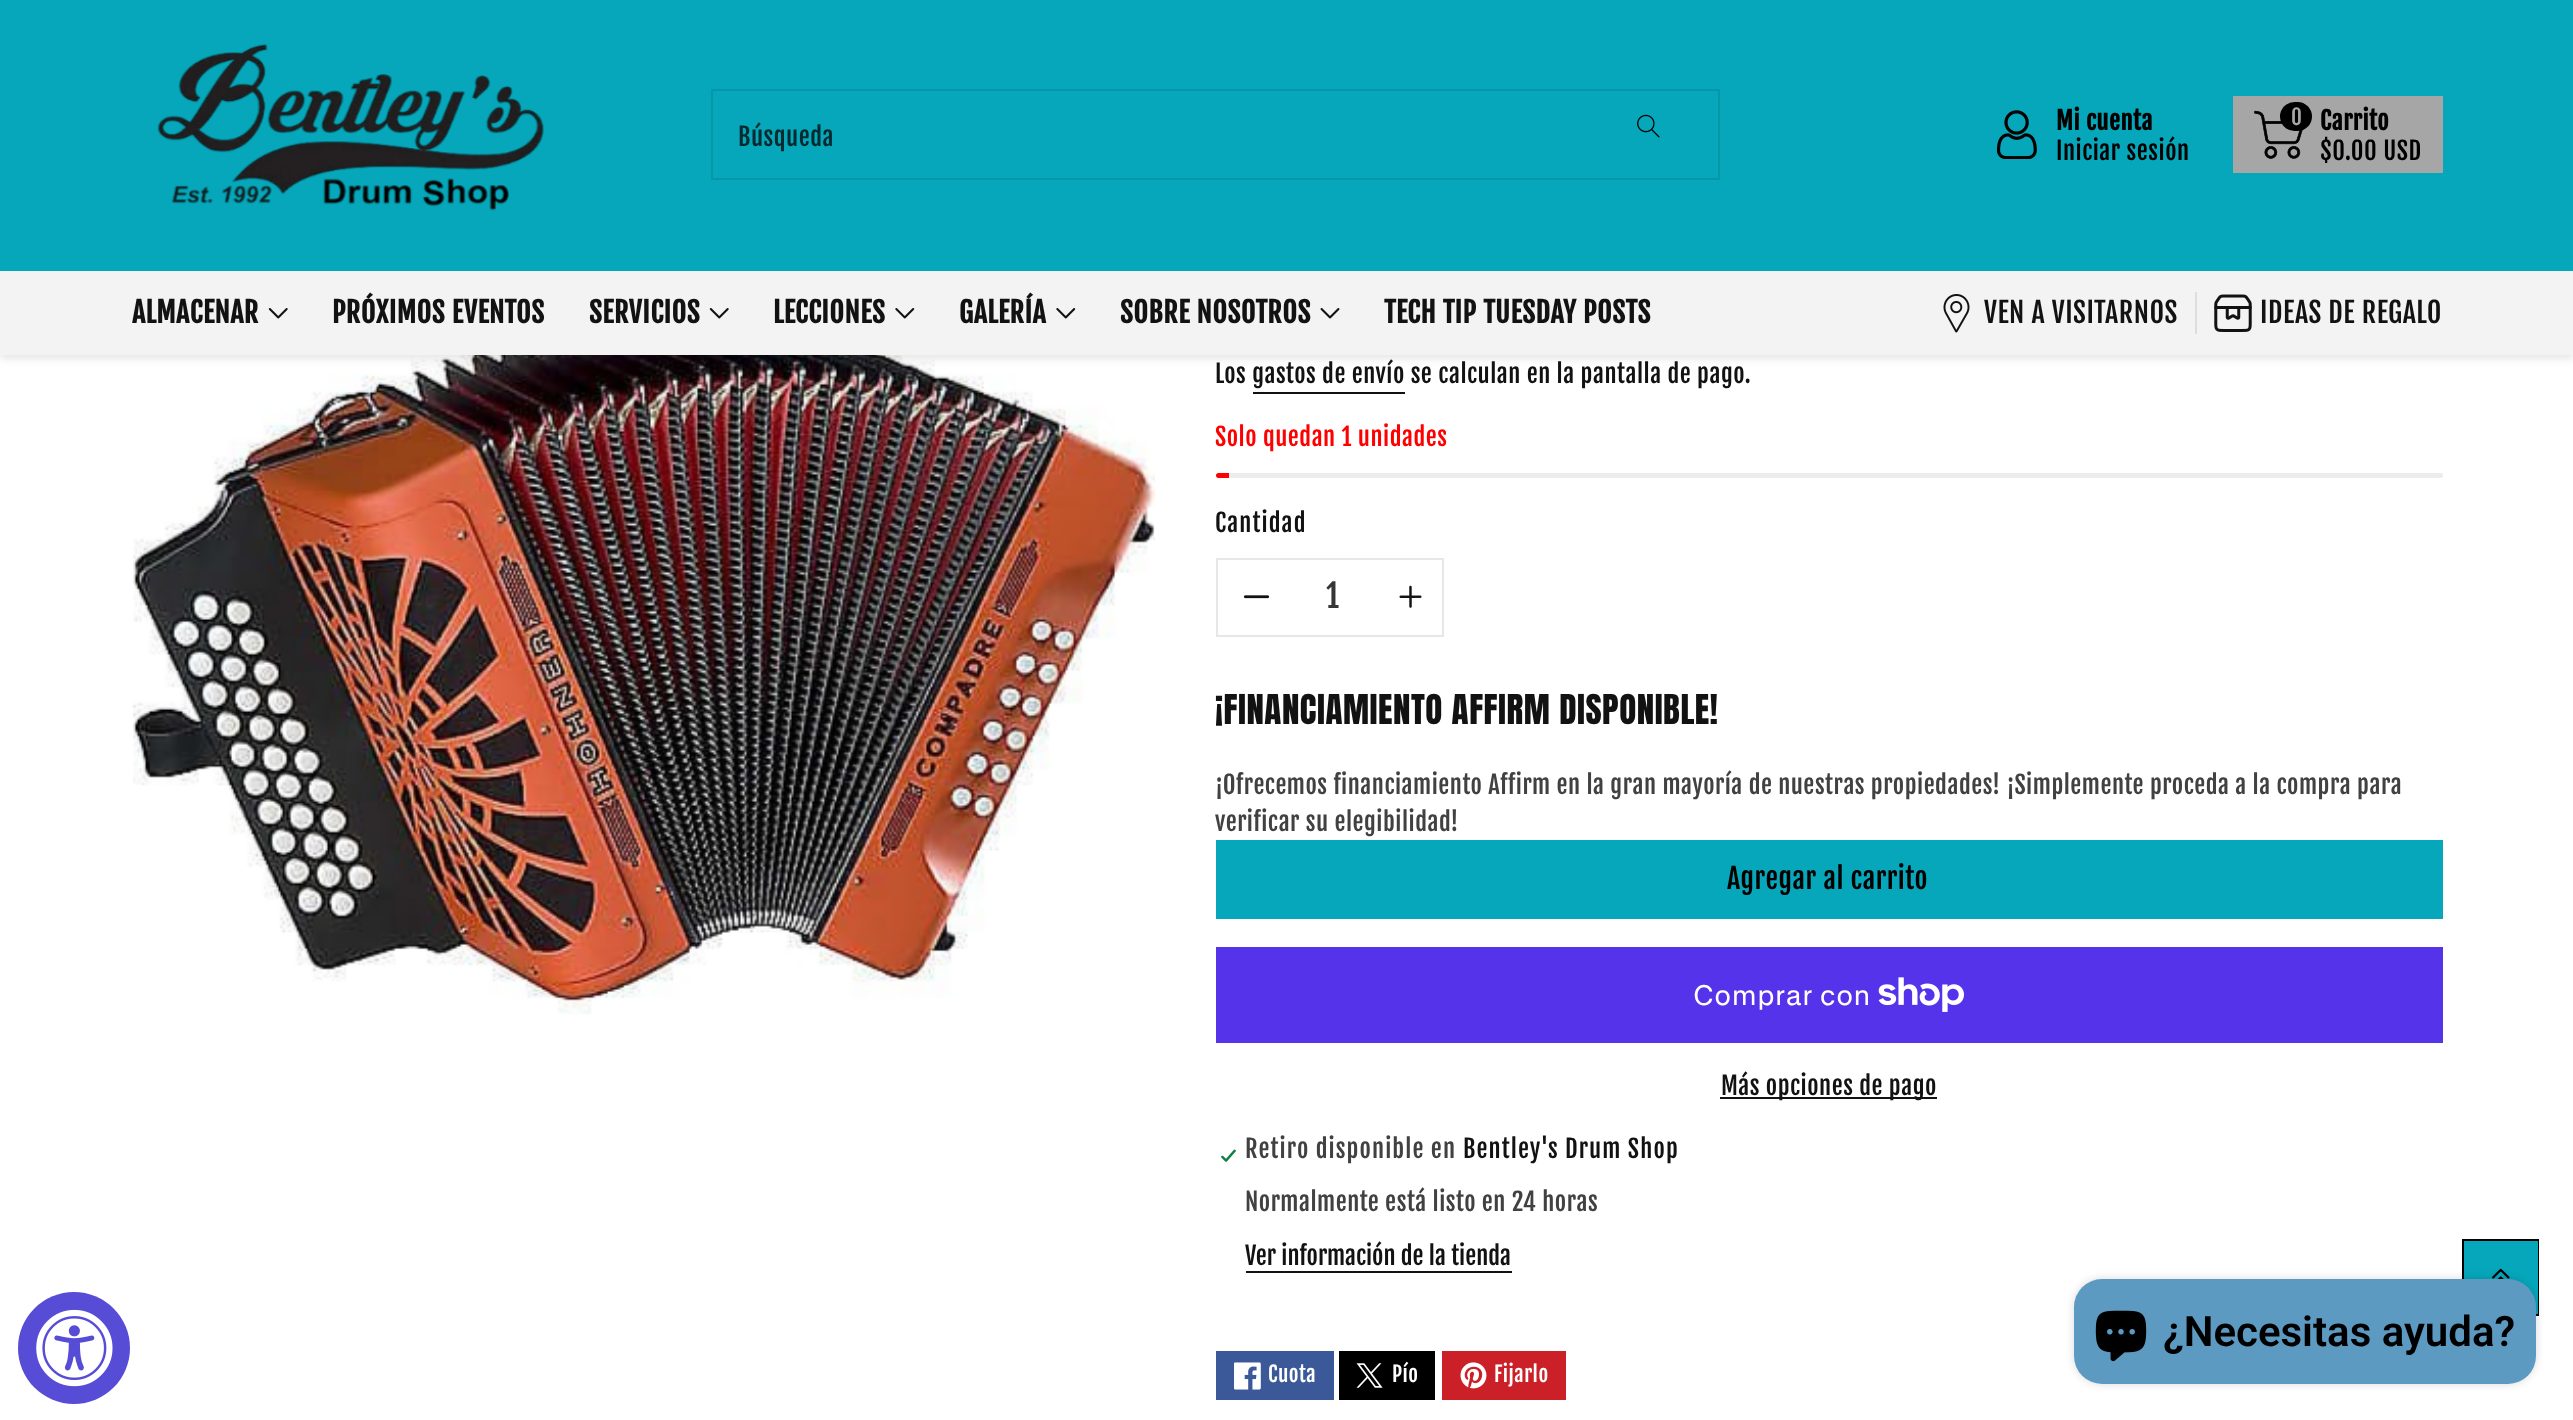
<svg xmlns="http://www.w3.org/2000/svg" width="2573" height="1420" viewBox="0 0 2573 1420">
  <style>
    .t1 { font: 24.5px Fjalla One; letter-spacing: 0.53px; fill: #022a2f; }
    .t2 { font: bold 24.5px Fjalla One; letter-spacing: 0.53px; fill: #000; }
    .t3 { font: 24.5px Fjalla One; letter-spacing: 0.53px; fill: #000; }
    .t4 { font: 21px Fjalla One; letter-spacing: 0.53px; fill: #a6a6a6; }
    .t5 { font: bold 28px Fjalla One; letter-spacing: 0.53px; fill: #121212; }
    .t6 { font: 28px Fjalla One; letter-spacing: 0.53px; fill: #121212; }
    .t7 { font: 24.5px Fjalla One; letter-spacing: 0.53px; fill: #121212; }
    .t8 { font: 24.5px Fjalla One; letter-spacing: 0.53px; fill: #f00; }
    .t9 { font: 24.5px Fjalla One; letter-spacing: 1.1px; fill: #121212; }
    .t10 { font: 32px Fjalla One; fill: #363636; }
    .t11 { font: 35px Anton; letter-spacing: 0.53px; fill: #121212; }
    .t12 { font: 24.5px Fjalla One; letter-spacing: 0.53px; fill: #414141; }
    .t13 { font: 28px Fjalla One; letter-spacing: 0.53px; fill: #000; }
    .t14 { font: 28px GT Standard; letter-spacing: 0.53px; fill: #fff; }
    .t15 { font: 24.5px Fjalla One; letter-spacing: 1.1px; fill: #414141; }
    .t16 { font: 24.5px Fjalla One; fill: #121212; }
    .t17 { font: 21px Fjalla One; letter-spacing: 0.53px; fill: #fff; }
    .t18 { font: 600 42px Roboto; fill: #000; }
  </style>
  <rect width="100%" height="100%" fill="#fff"/>
  <image x="132" y="355" width="1023" height="660" href="images/10.png"/>
  <rect x="0" y="4" width="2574" height="355" fill="#1212121a" filter="blur(3.5px)"/>
  <rect x="0" y="0" width="2573" height="271" fill="#06a7ba"/>
  <image x="157" y="44" width="387" height="167" href="images/1.png"/>
  <image x="1637" y="114" width="23" height="24" href="images/2.png"/>
  <rect x="712" y="90" width="1007" height="89" fill="none" stroke="#0596a7" stroke-width="2"/>
  <text x="738" y="146" class="t1">Búsqueda</text>
  <image x="1996" y="110" width="41" height="49" href="images/3.png"/>
  <text x="2056" y="130" class="t2">Mi cuenta</text>
  <text x="2056" y="160" class="t3">Iniciar sesión</text>
  <rect x="2233" y="96" width="210" height="77" fill="#a6a6a6"/>
  <image x="2254" y="110" width="49" height="49" href="images/4.png"/>
  <rect x="2280" y="102" width="32" height="29" rx="14.5" fill="#000"/>
  <text x="2291" y="125" class="t4">0</text>
  <text x="2320" y="130" class="t2">Carrito</text>
  <text x="2320" y="160" class="t3">$0.00 USD</text>
  <rect x="1" y="271" width="2572" height="84" fill="#f3f3f3"/>
  <text x="132" y="323" class="t5">ALMACENAR</text>
  <image x="268" y="308" width="20" height="11" href="images/5.png"/>
  <text x="332" y="323" class="t5">PRÓXIMOS EVENTOS</text>
  <text x="589" y="323" class="t5">SERVICIOS</text>
  <image x="709" y="308" width="20" height="11" href="images/5.png"/>
  <text x="773" y="323" class="t5">LECCIONES</text>
  <image x="895" y="308" width="20" height="11" href="images/6.png"/>
  <text x="959" y="323" class="t5">GALERÍA</text>
  <image x="1056" y="308" width="20" height="11" href="images/6.png"/>
  <text x="1120" y="323" class="t5">SOBRE NOSOTROS</text>
  <image x="1320" y="308" width="20" height="11" href="images/7.png"/>
  <text x="1384" y="323" class="t5">TECH TIP TUESDAY POSTS</text>
  <image x="1943" y="294" width="27" height="39" href="images/8.png"/>
  <text x="1984" y="323" class="t6">VEN A VISITARNOS</text>
  <rect x="2195" y="292" width="2" height="42" fill="#ddd"/>
  <image x="2214" y="294" width="38" height="38" href="images/9.png"/>
  <text x="2260" y="323" class="t6">IDEAS DE REGALO</text>
  <text x="1215" y="383" class="t7">Los gastos de envío se calculan en la pantalla de pago.</text>
  <rect x="1253" y="392" width="152" height="2" fill="#121212"/>
  <text x="1215" y="446" class="t8">Solo quedan 1 unidades</text>
  <rect x="1216" y="473" width="1227" height="5" rx="2.5" fill="#ececec"/>
  <path d="M1218.5 473H1229V478H1218.5C1217 478 1216 477 1216 475.5C1216 474 1217 473 1218.5 473Z" fill="#f00"/>
  <text x="1215" y="532" class="t9">Cantidad</text>
  <image x="1243" y="595" width="27" height="4" href="images/11.png"/>
  <image x="1399" y="585" width="23" height="23" href="images/12.png"/>
  <rect x="1217" y="559" width="226" height="77" fill="none" stroke="#e7e7e7" stroke-width="2"/>
  <text x="1326" y="608" class="t10">1</text>
  <text x="1215" y="724" class="t11">¡FINANCIAMIENTO AFFIRM DISPONIBLE!</text>
  <text x="1215" y="794" class="t12">¡Ofrecemos financiamiento Affirm en la gran mayoría de nuestras propiedades! ¡Simplemente proceda a la compra para</text>
  <text x="1215" y="831" class="t12">verificar su elegibilidad!</text>
  <rect x="1216" y="840" width="1227" height="79" fill="#06a7ba"/>
  <text x="1727" y="889" class="t13">Agregar al carrito</text>
  <rect x="1216" y="947" width="1227" height="96" fill="#5433eb"/>
  <text x="1693" y="1005" class="t14">Comprar con</text>
  <image x="1878" y="977" width="86" height="35" href="images/13.png"/>
  <rect x="1720" y="1097" width="217" height="2" fill="#121212"/>
  <text x="1721" y="1095" class="t7">Más opciones de pago</text>
  <image x="1220" y="1149" width="17" height="14" href="images/14.png"/>
  <text x="1245" y="1158" class="t15">Retiro disponible en</text>
  <text x="1463" y="1158" class="t9">Bentley's Drum Shop</text>
  <text x="1245" y="1211" class="t12">Normalmente está listo en 24 horas</text>
  <text x="1245" y="1265" class="t16">Ver información de la tienda</text>
  <rect x="1246" y="1271" width="266" height="2" fill="#121212"/>
  <rect x="1216" y="1351" width="118" height="49" fill="#3b5998"/>
  <image x="1234" y="1362" width="27" height="28" href="images/15.png"/>
  <text x="1268" y="1382" class="t17">Cuota</text>
  <rect x="1339" y="1351" width="96" height="49" fill="#000"/>
  <image x="1356" y="1363" width="27" height="25" href="images/16.png"/>
  <text x="1392" y="1382" class="t17">Pío</text>
  <rect x="1442" y="1351" width="124" height="49" fill="#cb2027"/>
  <image x="1460" y="1362" width="27" height="27" href="images/17.png"/>
  <text x="1494" y="1382" class="t17">Fijarlo</text>
  <rect x="2466" y="1243" width="70" height="64" fill="#06a7ba"/>
  <rect x="2463" y="1240" width="75" height="75" fill="none" stroke="#000" stroke-width="2"/>
  <image x="2492" y="1268" width="18" height="11" href="images/18.png"/>
  <rect x="2465" y="1242" width="72" height="71" fill="none" stroke="#06a7ba" stroke-width="2"/>
  <circle cx="74" cy="1348" r="56" fill="#574cd5"/>
  <image x="36" y="1309" width="77" height="78" href="images/19.png"/>
  <rect x="2074" y="1279" width="462" height="105" rx="28" fill="#00000026" filter="blur(4.5px)"/>
  <rect x="2074" y="1279" width="462" height="105" rx="28" fill="#5d9ac1"/>
  <image x="2095" y="1310" width="52" height="52" href="images/20.png"/>
  <text x="2163" y="1346" class="t18">¿Necesitas ayuda?</text>
</svg>
